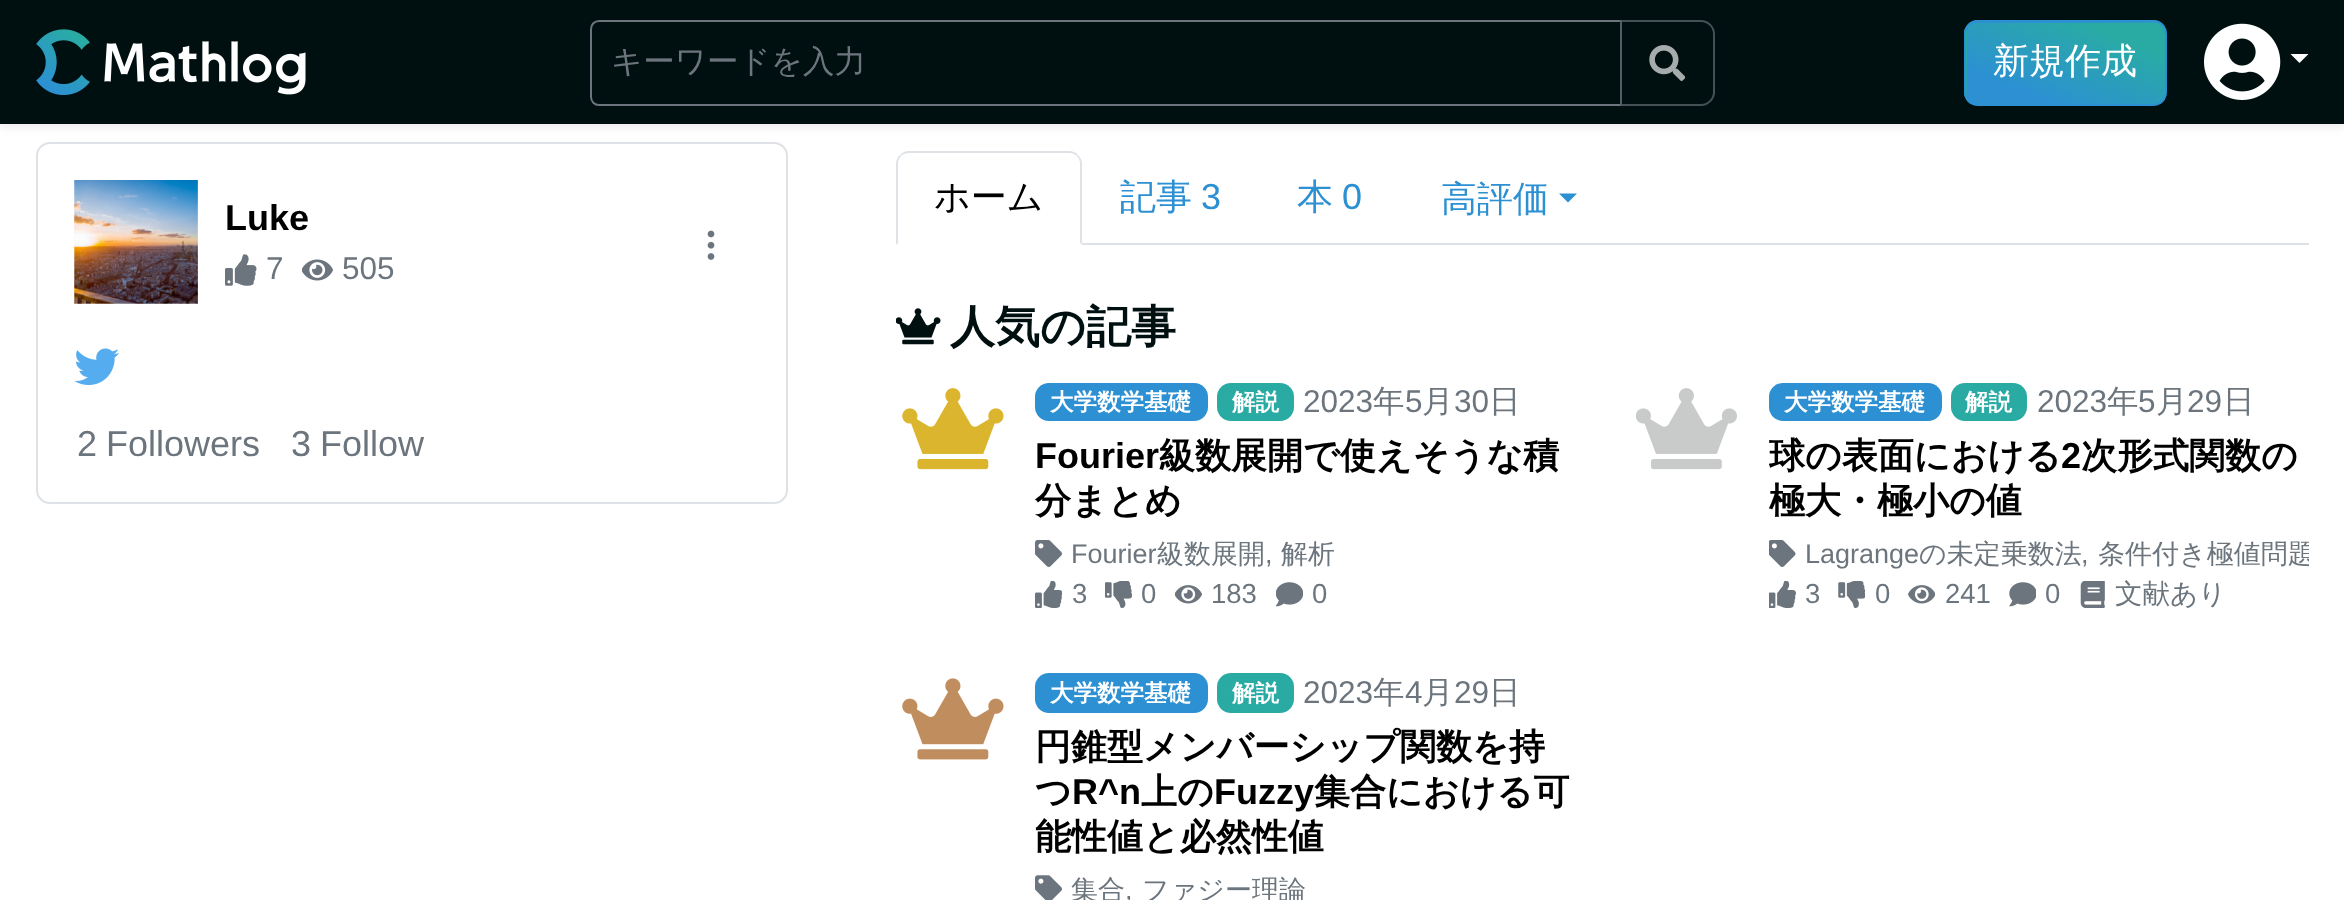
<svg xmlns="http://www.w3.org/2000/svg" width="2344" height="900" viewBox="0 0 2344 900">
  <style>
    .t1 { font: 500 31.5px WenQuanYi Zen Hei; fill: #6c757d; }
    .t2 { font: 500 36px WenQuanYi Zen Hei; fill: #fff; }
    .t3 { font: bold 36px Liberation Sans; fill: #000; }
    .t4 { font: 31.5px Liberation Sans; fill: #6c757d; }
    .t5 { font: 36px Liberation Sans; fill: #6c757d; }
    .t6 { font: 500 36px WenQuanYi Zen Hei; fill: #000; }
    .t7 { font: 500 36px WenQuanYi Zen Hei; fill: #2c90d3; }
    .t8 { font: 36px Liberation Sans; fill: #2c90d3; }
    .t9 { font: bold 45px WenQuanYi Zen Hei; fill: #001010; }
    .t10 { font: bold 23.5px WenQuanYi Zen Hei; fill: #fff; }
    .t11 { font: bold 36px WenQuanYi Zen Hei; fill: #000; }
    .t12 { font: 27px Liberation Sans; fill: #6c757d; }
    .t13 { font: 500 27px WenQuanYi Zen Hei; fill: #6c757d; }
    .t14 { font: 27.5px Liberation Sans; fill: #6c757d; }
    .t15 { font: 500 27.5px WenQuanYi Zen Hei; fill: #6c757d; }
  </style>
  <defs>
    <clipPath id="clip1"><rect x="1964" y="20" width="203" height="86" rx="14"/></clipPath>
    <linearGradient id="g1" gradientUnits="userSpaceOnUse" x1="2037" y1="51" x2="2094" y2="-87"><stop offset="0.2" stop-color="#2c90d3"/><stop offset="0.8" stop-color="#29aba4"/></linearGradient>
    <linearGradient id="g2" gradientUnits="userSpaceOnUse" x1="1839" y1="132" x2="1896" y2="-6.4"><stop offset="0.2" stop-color="#2c90d3"/><stop offset="0.8" stop-color="#29aba4"/></linearGradient>
    <linearGradient id="g3" gradientUnits="userSpaceOnUse" x1="2037" y1="132" x2="2094" y2="-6.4"><stop offset="0.2" stop-color="#2c90d3"/><stop offset="0.8" stop-color="#29aba4"/></linearGradient>
    <clipPath id="clip2"><rect x="1769" y="434" width="540" height="90"/></clipPath>
    <clipPath id="clip3"><rect x="1805" y="533" width="504" height="41"/></clipPath>
  </defs>
  <rect width="100%" height="100%" fill="#fff"/>
  <rect x="37" y="143" width="750" height="360" rx="13" fill="none" stroke="#dee2e6" stroke-width="2"/>
  <rect x="0" y="5" width="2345" height="123" fill="#00000012" filter="blur(4.5px)"/>
  <rect x="0" y="0" width="2344" height="124" fill="#001010"/>
  <image x="36" y="29" width="270" height="66" href="images/1.png"/>
  <path d="M599 21H1621V105H599C594.5 105 591 101.5 591 97V29C591 24.5 594.5 21 599 21Z" fill="none" stroke="#6c757d" stroke-width="2"/>
  <text x="611" y="72" class="t1">キーワードを入力</text>
  <path d="M1620 20H1701C1708.5 20 1715 26.5 1715 34V92C1715 99.5 1708.5 106 1701 106H1620Z" fill="#001010a6"/>
  <path d="M1621 21H1701C1708 21 1714 27 1714 34V92C1714 99 1708 105 1701 105H1621Z" fill="none" stroke="#6c757da6" stroke-width="2"/>
  <image x="1649" y="45" width="36" height="36" href="images/2.png"/>
  <g clip-path="url(#clip1)">
    <rect x="1967" y="20" width="198" height="3" fill="url(#g1)"/>
    <rect x="1964" y="23" width="3" height="81" fill="url(#g2)"/>
    <rect x="1967" y="23" width="198" height="81" fill="url(#g3)"/>
  </g>
  <rect x="1965" y="21" width="201" height="84" rx="13" fill="none" stroke="#2c90d3" stroke-width="2"/>
  <text x="1993" y="73" class="t2">新規作成</text>
  <image x="2204" y="23" width="77" height="77" href="images/3.png"/>
  <path d="M2290.5 54H2308.5L2299.5 63Z" fill="#fff"/>
  <image x="74" y="180" width="124" height="124" href="images/4.png"/>
  <text x="225" y="230" class="t3">Luke</text>
  <image x="225" y="254" width="32" height="32" href="images/5.png"/>
  <text x="266" y="279" class="t4">7</text>
  <image x="302" y="259" width="31" height="22" href="images/6.png"/>
  <text x="342" y="279" class="t4">505</text>
  <image x="707" y="230" width="8" height="30" href="images/7.png"/>
  <image x="74" y="348" width="45" height="37" href="images/8.png"/>
  <text x="77" y="456" class="t5">2</text>
  <text x="106" y="456" class="t5">Followers</text>
  <text x="291" y="456" class="t5">3</text>
  <text x="320" y="456" class="t5">Follow</text>
  <rect x="1082" y="243" width="1227" height="2" fill="#dee2e6"/>
  <path d="M909 151C905 151 902 153 900 155L901 156C903 154 906 153 909 153H1069C1072 153 1075 154 1077 156L1078 155C1076 152 1072 151 1069 151Z" fill="#dee2e6"/>
  <path d="M1082 245V164C1082 160 1080 157 1078 155L1077 156C1079 158 1080 161 1080 164V243Z" fill="#dee2e6"/>
  <path d="M1082 245L1080 243H898L896 245Z" fill="#fff"/>
  <path d="M900 155C897 157 896 161 896 164V245L898 243V164C898 161 899 158 901 156Z" fill="#dee2e6"/>
  <text x="934" y="209" class="t6">ホーム</text>
  <text x="1120" y="209" class="t7">記事</text>
  <text x="1201" y="209" class="t8">3</text>
  <text x="1297" y="209" class="t7">本</text>
  <text x="1342" y="209" class="t8">0</text>
  <text x="1441" y="211" class="t7">高評価</text>
  <path d="M1559 193.5H1577L1568 202.5Z" fill="#2c90d3"/>
  <image x="896" y="308" width="45" height="37" href="images/9.png"/>
  <text x="950" y="342" class="t9">人気の記事</text>
  <image x="902" y="388" width="102" height="82" href="images/10.png"/>
  <rect x="1035" y="383" width="173" height="38" rx="14" fill="#2c90d3"/>
  <text x="1050" y="410" class="t10">大学数学基礎</text>
  <rect x="1217" y="383" width="77" height="38" rx="14" fill="#29aba4"/>
  <text x="1232" y="410" class="t10">解説</text>
  <text x="1303" y="412" class="t4">2023</text>
  <text x="1373" y="412" class="t1">年</text>
  <text x="1405" y="412" class="t4">5</text>
  <text x="1422" y="412" class="t1">月</text>
  <text x="1454" y="412" class="t4">30</text>
  <text x="1489" y="412" class="t1">日</text>
  <text x="1035" y="468" class="t3">Fourier</text>
  <text x="1159" y="468" class="t11">級数展開で使えそうな積</text>
  <text x="1035" y="513" class="t11">分まとめ</text>
  <image x="1035" y="540" width="27" height="27" href="images/11.png"/>
  <text x="1071" y="563" class="t12">Fourier</text>
  <text x="1157" y="563" class="t13">級数展開</text>
  <text x="1265" y="563" class="t12">,</text>
  <text x="1281" y="563" class="t13">解析</text>
  <image x="1035" y="581" width="27" height="27" href="images/12.png"/>
  <text x="1072" y="603" class="t14">3</text>
  <image x="1105" y="581" width="27" height="27" href="images/13.png"/>
  <text x="1141" y="603" class="t14">0</text>
  <image x="1175" y="585" width="27" height="19" href="images/14.png"/>
  <text x="1211" y="603" class="t14">183</text>
  <image x="1276" y="582" width="27" height="25" href="images/15.png"/>
  <text x="1312" y="603" class="t14">0</text>
  <image x="1636" y="388" width="101" height="82" href="images/16.png"/>
  <rect x="1769" y="383" width="173" height="38" rx="14" fill="#2c90d3"/>
  <text x="1784" y="410" class="t10">大学数学基礎</text>
  <rect x="1951" y="383" width="76" height="38" rx="14" fill="#29aba4"/>
  <text x="1965" y="410" class="t10">解説</text>
  <text x="2037" y="412" class="t4">2023</text>
  <text x="2107" y="412" class="t1">年</text>
  <text x="2138" y="412" class="t4">5</text>
  <text x="2156" y="412" class="t1">月</text>
  <text x="2187" y="412" class="t4">29</text>
  <text x="2223" y="412" class="t1">日</text>
  <g clip-path="url(#clip2)">
    <text x="1769" y="468" class="t11">球の表面における</text>
  </g>
  <text x="2061" y="468" class="t3">2</text>
  <text x="2081" y="468" class="t11">次形式関数の</text>
  <text x="1769" y="513" class="t11">極大・極小の値</text>
  <image x="1769" y="540" width="27" height="27" href="images/17.png"/>
  <text x="1805" y="563" class="t12">Lagrange</text>
  <text x="1919" y="563" class="t13">の未定乗数法</text>
  <text x="2081" y="563" class="t12">,</text>
  <g clip-path="url(#clip3)">
    <text x="2098" y="563" class="t13">条件付き極値問題</text>
  </g>
  <image x="1769" y="581" width="27" height="27" href="images/18.png"/>
  <text x="1805" y="603" class="t14">3</text>
  <image x="1838" y="581" width="27" height="27" href="images/19.png"/>
  <text x="1875" y="603" class="t14">0</text>
  <image x="1908" y="585" width="27" height="19" href="images/20.png"/>
  <text x="1945" y="603" class="t14">241</text>
  <image x="2009" y="582" width="27" height="25" href="images/21.png"/>
  <text x="2045" y="603" class="t14">0</text>
  <image x="2080" y="581" width="25" height="27" href="images/22.png"/>
  <text x="2115" y="603" class="t15">文献あり</text>
  <image x="902" y="678" width="102" height="82" href="images/23.png"/>
  <rect x="1035" y="673" width="173" height="40" rx="14" fill="#2c90d3"/>
  <text x="1050" y="701" class="t10">大学数学基礎</text>
  <rect x="1217" y="673" width="77" height="40" rx="14" fill="#29aba4"/>
  <text x="1232" y="701" class="t10">解説</text>
  <text x="1303" y="703" class="t4">2023</text>
  <text x="1373" y="703" class="t1">年</text>
  <text x="1405" y="703" class="t4">4</text>
  <text x="1422" y="703" class="t1">月</text>
  <text x="1454" y="703" class="t4">29</text>
  <text x="1489" y="703" class="t1">日</text>
  <text x="1035" y="759" class="t11">円錐型メンバーシップ関数を持</text>
  <text x="1035" y="804" class="t11">つ</text>
  <text x="1072" y="804" class="t3">R^n</text>
  <text x="1141" y="804" class="t11">上の</text>
  <text x="1214" y="804" class="t3">Fuzzy</text>
  <text x="1314" y="804" class="t11">集合における可</text>
  <text x="1035" y="849" class="t11">能性値と必然性値</text>
  <image x="1035" y="875" width="27" height="25" href="images/24.png"/>
  <text x="1071" y="899" class="t13">集合</text>
  <text x="1125" y="899" class="t12">,</text>
  <text x="1142" y="899" class="t13">ファジー理論</text>
</svg>
